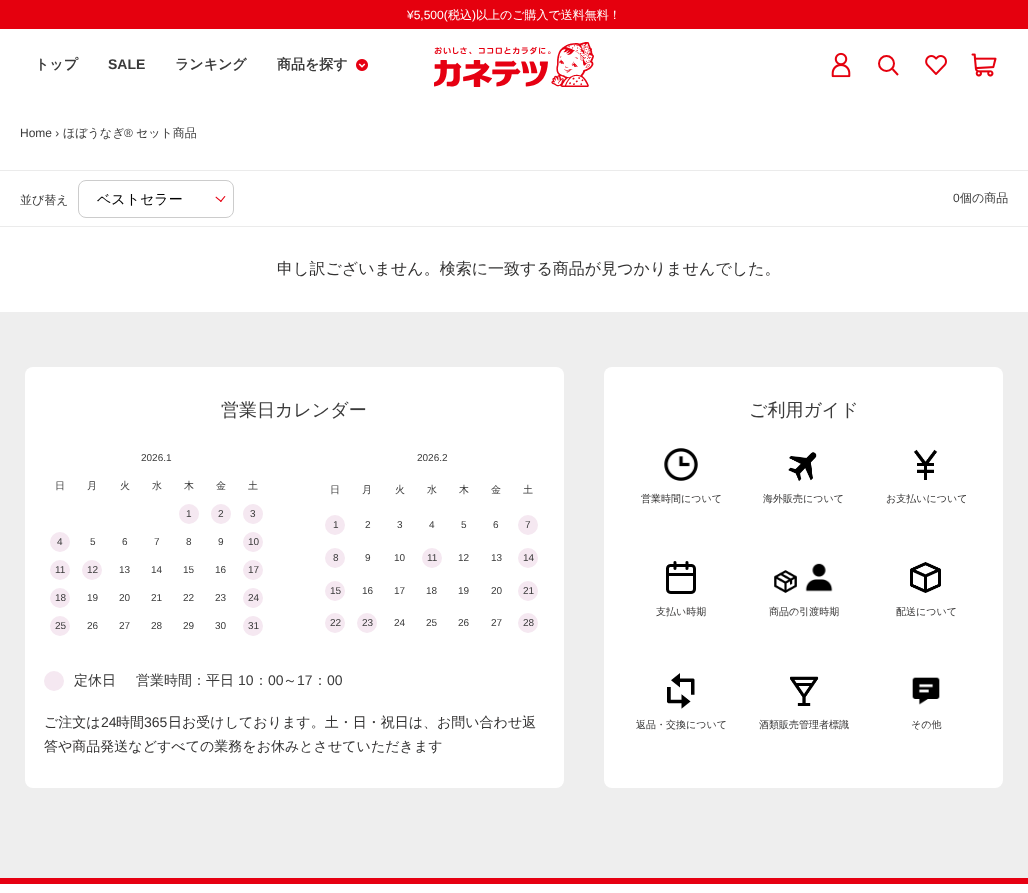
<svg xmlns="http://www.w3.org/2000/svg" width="1028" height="893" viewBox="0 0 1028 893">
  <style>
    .t1 { font: 12px Liberation Sans; fill: #fff; }
    .t2 { font: 500 12px WenQuanYi Zen Hei; fill: #fff; }
    .t3 { font: bold 14px WenQuanYi Zen Hei; fill: #3a3a3a; }
    .t4 { font: bold 14px Liberation Sans; fill: #3a3a3a; }
    .t5 { font: 12px Liberation Sans; fill: #3a3a3a; }
    .t6 { font: 500 12px WenQuanYi Zen Hei; fill: #3a3a3a; }
    .t7 { font: 500 14px WenQuanYi Zen Hei; fill: #000; }
    .t8 { font: 500 16px WenQuanYi Zen Hei; fill: #333232; }
    .t9 { font: 500 18px WenQuanYi Zen Hei; fill: #3a3a3a; }
    .t10 { font: 10px Liberation Sans; fill: #3a3a3a; }
    .t11 { font: 500 10px WenQuanYi Zen Hei; fill: #3a3a3a; }
    .t12 { font: 500 14px WenQuanYi Zen Hei; fill: #3a3a3a; }
    .t13 { font: 14px Liberation Sans; fill: #3a3a3a; }
    .t14 { font: 500 14px WenQuanYi Zen Hei; fill: #333232; }
    .t15 { font: 14px Liberation Sans; fill: #333232; }
    .t16 { font: 500 10px WenQuanYi Zen Hei; fill: #333232; }
  </style>
  <rect width="100%" height="100%" fill="#fff"/>
  <rect x="0" y="0" width="1028" height="29" fill="#e5000e"/>
  <text x="407" y="19" class="t1">¥5,500(</text>
  <text x="448" y="19" class="t2">税込</text>
  <text x="472" y="19" class="t1">)</text>
  <text x="476" y="19" class="t2">以上のご購入で送料無料！</text>
  <text x="35" y="69" class="t3">トップ</text>
  <text x="108" y="69" class="t4">SALE</text>
  <text x="175" y="69" class="t3">ランキング</text>
  <text x="277" y="69" class="t3">商品を探す</text>
  <image x="356" y="59" width="12" height="12" href="images/1.png"/>
  <image x="434" y="42" width="160" height="45" href="images/2.png"/>
  <image x="831" y="52" width="20" height="26" href="images/3.png"/>
  <path d="M892.5 69L898 75" fill="none" stroke="#e5000e" stroke-width="2"/>
  <circle cx="886.5" cy="63.5" r="7.5" fill="none" stroke="#e5000e" stroke-width="2"/>
  <image x="925" y="55" width="22" height="20" href="images/4.png"/>
  <image x="971" y="53" width="26" height="24" href="images/5.png"/>
  <text x="20" y="137" class="t5">Home ›</text>
  <text x="63" y="137" class="t6">ほぼうなぎ</text>
  <text x="124" y="137" class="t5">®</text>
  <text x="136" y="137" class="t6">セット商品</text>
  <rect x="0" y="170" width="1028" height="1" fill="#ebebeb"/>
  <rect x="0" y="226" width="1028" height="1" fill="#ebebeb"/>
  <text x="20" y="204" class="t6">並び替え</text>
  <rect x="78.5" y="180.5" width="155" height="37" rx="7.5" fill="none" stroke="#ccc"/>
  <text x="97" y="204" class="t7">ベストセラー</text>
  <path d="M224.5 196L225.5 196.5L221 202L220 201.5Z" fill="#e60012"/>
  <path d="M216 196.5L221.5 201L221 202L215.5 197.5Z" fill="#e60012"/>
  <text x="953" y="202" class="t5">0</text>
  <text x="960" y="202" class="t6">個の商品</text>
  <text x="277" y="274" class="t8">申し訳ございません。検索に一致する商品が見つかりませんでした。</text>
  <rect x="0" y="312" width="1028" height="566" fill="#eee"/>
  <rect x="25" y="367" width="539" height="421" rx="8" fill="#fff"/>
  <text x="221" y="416" class="t9">営業日カレンダー</text>
  <text x="141" y="461" class="t10">2026.1</text>
  <text x="55" y="489" class="t11">日</text>
  <text x="87" y="489" class="t11">月</text>
  <text x="120" y="489" class="t11">火</text>
  <text x="152" y="489" class="t11">水</text>
  <text x="184" y="489" class="t11">木</text>
  <text x="216" y="489" class="t11">金</text>
  <text x="248" y="489" class="t11">土</text>
  <circle cx="189" cy="514" r="10" fill="#f5e8f1"/>
  <text x="186" y="517" class="t10">1</text>
  <circle cx="221" cy="514" r="10" fill="#f5e8f1"/>
  <text x="218" y="517" class="t10">2</text>
  <circle cx="253" cy="514" r="10" fill="#f5e8f1"/>
  <text x="250" y="517" class="t10">3</text>
  <circle cx="60" cy="542" r="10" fill="#f5e8f1"/>
  <text x="57" y="545" class="t10">4</text>
  <text x="90" y="545" class="t10">5</text>
  <text x="122" y="545" class="t10">6</text>
  <text x="154" y="545" class="t10">7</text>
  <text x="186" y="545" class="t10">8</text>
  <text x="218" y="545" class="t10">9</text>
  <circle cx="253" cy="542" r="10" fill="#f5e8f1"/>
  <text x="248" y="545" class="t10">10</text>
  <circle cx="60" cy="570" r="10" fill="#f5e8f1"/>
  <text x="55" y="573" class="t10">11</text>
  <circle cx="92" cy="570" r="10" fill="#f5e8f1"/>
  <text x="87" y="573" class="t10">12</text>
  <text x="119" y="573" class="t10">13</text>
  <text x="151" y="573" class="t10">14</text>
  <text x="183" y="573" class="t10">15</text>
  <text x="215" y="573" class="t10">16</text>
  <circle cx="253" cy="570" r="10" fill="#f5e8f1"/>
  <text x="248" y="573" class="t10">17</text>
  <circle cx="60" cy="598" r="10" fill="#f5e8f1"/>
  <text x="55" y="601" class="t10">18</text>
  <text x="87" y="601" class="t10">19</text>
  <text x="119" y="601" class="t10">20</text>
  <text x="151" y="601" class="t10">21</text>
  <text x="183" y="601" class="t10">22</text>
  <text x="215" y="601" class="t10">23</text>
  <circle cx="253" cy="598" r="10" fill="#f5e8f1"/>
  <text x="248" y="601" class="t10">24</text>
  <circle cx="60" cy="626" r="10" fill="#f5e8f1"/>
  <text x="55" y="629" class="t10">25</text>
  <text x="87" y="629" class="t10">26</text>
  <text x="119" y="629" class="t10">27</text>
  <text x="151" y="629" class="t10">28</text>
  <text x="183" y="629" class="t10">29</text>
  <text x="215" y="629" class="t10">30</text>
  <circle cx="253" cy="626" r="10" fill="#f5e8f1"/>
  <text x="248" y="629" class="t10">31</text>
  <text x="417" y="461" class="t10">2026.2</text>
  <text x="330" y="493" class="t11">日</text>
  <text x="362" y="493" class="t11">月</text>
  <text x="395" y="493" class="t11">火</text>
  <text x="427" y="493" class="t11">水</text>
  <text x="459" y="493" class="t11">木</text>
  <text x="491" y="493" class="t11">金</text>
  <text x="523" y="493" class="t11">土</text>
  <circle cx="335" cy="525" r="10" fill="#f5e8f1"/>
  <text x="333" y="528" class="t10">1</text>
  <text x="365" y="528" class="t10">2</text>
  <text x="397" y="528" class="t10">3</text>
  <text x="429" y="528" class="t10">4</text>
  <text x="461" y="528" class="t10">5</text>
  <text x="493" y="528" class="t10">6</text>
  <circle cx="528" cy="525" r="10" fill="#f5e8f1"/>
  <text x="525" y="528" class="t10">7</text>
  <circle cx="335" cy="558" r="10" fill="#f5e8f1"/>
  <text x="333" y="561" class="t10">8</text>
  <text x="365" y="561" class="t10">9</text>
  <text x="394" y="561" class="t10">10</text>
  <circle cx="432" cy="558" r="10" fill="#f5e8f1"/>
  <text x="427" y="561" class="t10">11</text>
  <text x="458" y="561" class="t10">12</text>
  <text x="491" y="561" class="t10">13</text>
  <circle cx="528" cy="558" r="10" fill="#f5e8f1"/>
  <text x="523" y="561" class="t10">14</text>
  <circle cx="335" cy="591" r="10" fill="#f5e8f1"/>
  <text x="330" y="594" class="t10">15</text>
  <text x="362" y="594" class="t10">16</text>
  <text x="394" y="594" class="t10">17</text>
  <text x="426" y="594" class="t10">18</text>
  <text x="458" y="594" class="t10">19</text>
  <text x="491" y="594" class="t10">20</text>
  <circle cx="528" cy="591" r="10" fill="#f5e8f1"/>
  <text x="523" y="594" class="t10">21</text>
  <circle cx="335" cy="623" r="10" fill="#f5e8f1"/>
  <text x="330" y="626" class="t10">22</text>
  <circle cx="367" cy="623" r="10" fill="#f5e8f1"/>
  <text x="362" y="626" class="t10">23</text>
  <text x="394" y="626" class="t10">24</text>
  <text x="426" y="626" class="t10">25</text>
  <text x="458" y="626" class="t10">26</text>
  <text x="491" y="626" class="t10">27</text>
  <circle cx="528" cy="623" r="10" fill="#f5e8f1"/>
  <text x="523" y="626" class="t10">28</text>
  <circle cx="54" cy="681" r="10" fill="#f5e8f1"/>
  <text x="74" y="685" class="t12">定休日</text>
  <text x="136" y="685" class="t12">営業時間：平日</text>
  <text x="238" y="685" class="t13">10</text>
  <text x="254" y="685" class="t12">：</text>
  <text x="268" y="685" class="t13">00</text>
  <text x="283" y="685" class="t12">～</text>
  <text x="297" y="685" class="t13">17</text>
  <text x="313" y="685" class="t12">：</text>
  <text x="327" y="685" class="t13">00</text>
  <text x="44" y="727" class="t14">ご注文は</text>
  <text x="101" y="727" class="t15">24</text>
  <text x="116" y="727" class="t14">時間</text>
  <text x="144" y="727" class="t15">365</text>
  <text x="168" y="727" class="t14">日お受けしております。土・日・祝日は、お問い合わせ返</text>
  <text x="44" y="751" class="t14">答や商品発送などすべての業務をお休みとさせていただきます</text>
  <rect x="604" y="367" width="399" height="421" rx="8" fill="#fff"/>
  <text x="749" y="416" class="t9">ご利用ガイド</text>
  <image x="664" y="448" width="34" height="33" href="images/6.png"/>
  <text x="641" y="502" class="t16">営業時間について</text>
  <image x="788" y="452" width="29" height="30" href="images/7.png"/>
  <text x="763" y="502" class="t16">海外販売について</text>
  <image x="913" y="449" width="25" height="31" href="images/8.png"/>
  <text x="886" y="502" class="t16">お支払いについて</text>
  <image x="666" y="561" width="30" height="33" href="images/9.png"/>
  <text x="656" y="615" class="t16">支払い時期</text>
  <image x="774" y="563" width="59" height="30" href="images/10.png"/>
  <text x="769" y="615" class="t16">商品の引渡時期</text>
  <image x="910" y="562" width="31" height="31" href="images/11.png"/>
  <text x="896" y="615" class="t16">配送について</text>
  <image x="667" y="673" width="28" height="36" href="images/12.png"/>
  <text x="636" y="728" class="t16">返品・交換について</text>
  <image x="790" y="676" width="29" height="30" href="images/13.png"/>
  <text x="759" y="728" class="t16">酒類販売管理者標識</text>
  <image x="912" y="677" width="28" height="28" href="images/14.png"/>
  <text x="911" y="728" class="t16">その他</text>
  <rect x="0" y="878" width="1028" height="6" fill="#e60012"/>
</svg>
